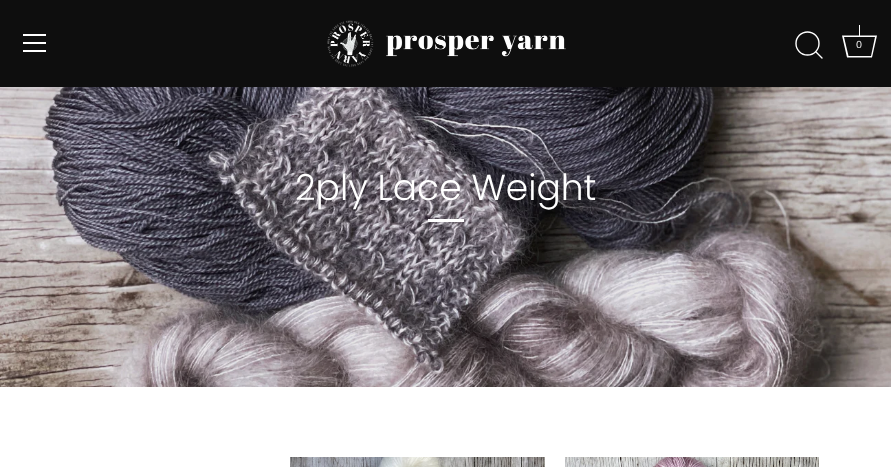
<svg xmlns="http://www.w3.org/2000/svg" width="891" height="467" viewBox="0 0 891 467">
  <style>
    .t1 { font: 10px Nunito Sans; fill: #fff; }
    .t2 { font: 300 36px Poppins; fill: #fff; }
  </style>
  <rect width="100%" height="100%" fill="#fff"/>
  <rect x="0" y="0" width="891" height="87" fill="#0e0e0e"/>
  <rect x="23" y="34" width="23" height="2" fill="#fff"/>
  <rect x="23" y="42" width="23" height="2" fill="#fff"/>
  <rect x="23" y="50" width="23" height="2" fill="#fff"/>
  <image x="327" y="20" width="239" height="47" href="images/1.png"/>
  <circle cx="807.5" cy="43.5" r="11.5" fill="none" stroke="#fff" stroke-width="1.4"/>
  <path d="M822 58L816 52" fill="none" stroke="#fff" stroke-width="1.4" stroke-linecap="round" stroke-linejoin="round"/>
  <path d="M875 37L871 56H848.5L844 37H875M877 35.5H842L847 57.5H872Z" fill="#fff"/>
  <rect x="859" y="25" width="1" height="11" fill="#fff"/>
  <text x="856" y="48" class="t1">0</text>
  <image x="0" y="87" width="891" height="300" href="images/2.png"/>
  <text x="295" y="200" class="t2">2ply Lace Weight</text>
  <rect x="428" y="219" width="36" height="3" fill="#fff"/>
  <image x="290" y="457" width="255" height="10" href="images/3.png"/>
  <image x="565" y="457" width="254" height="10" href="images/4.png"/>
</svg>
